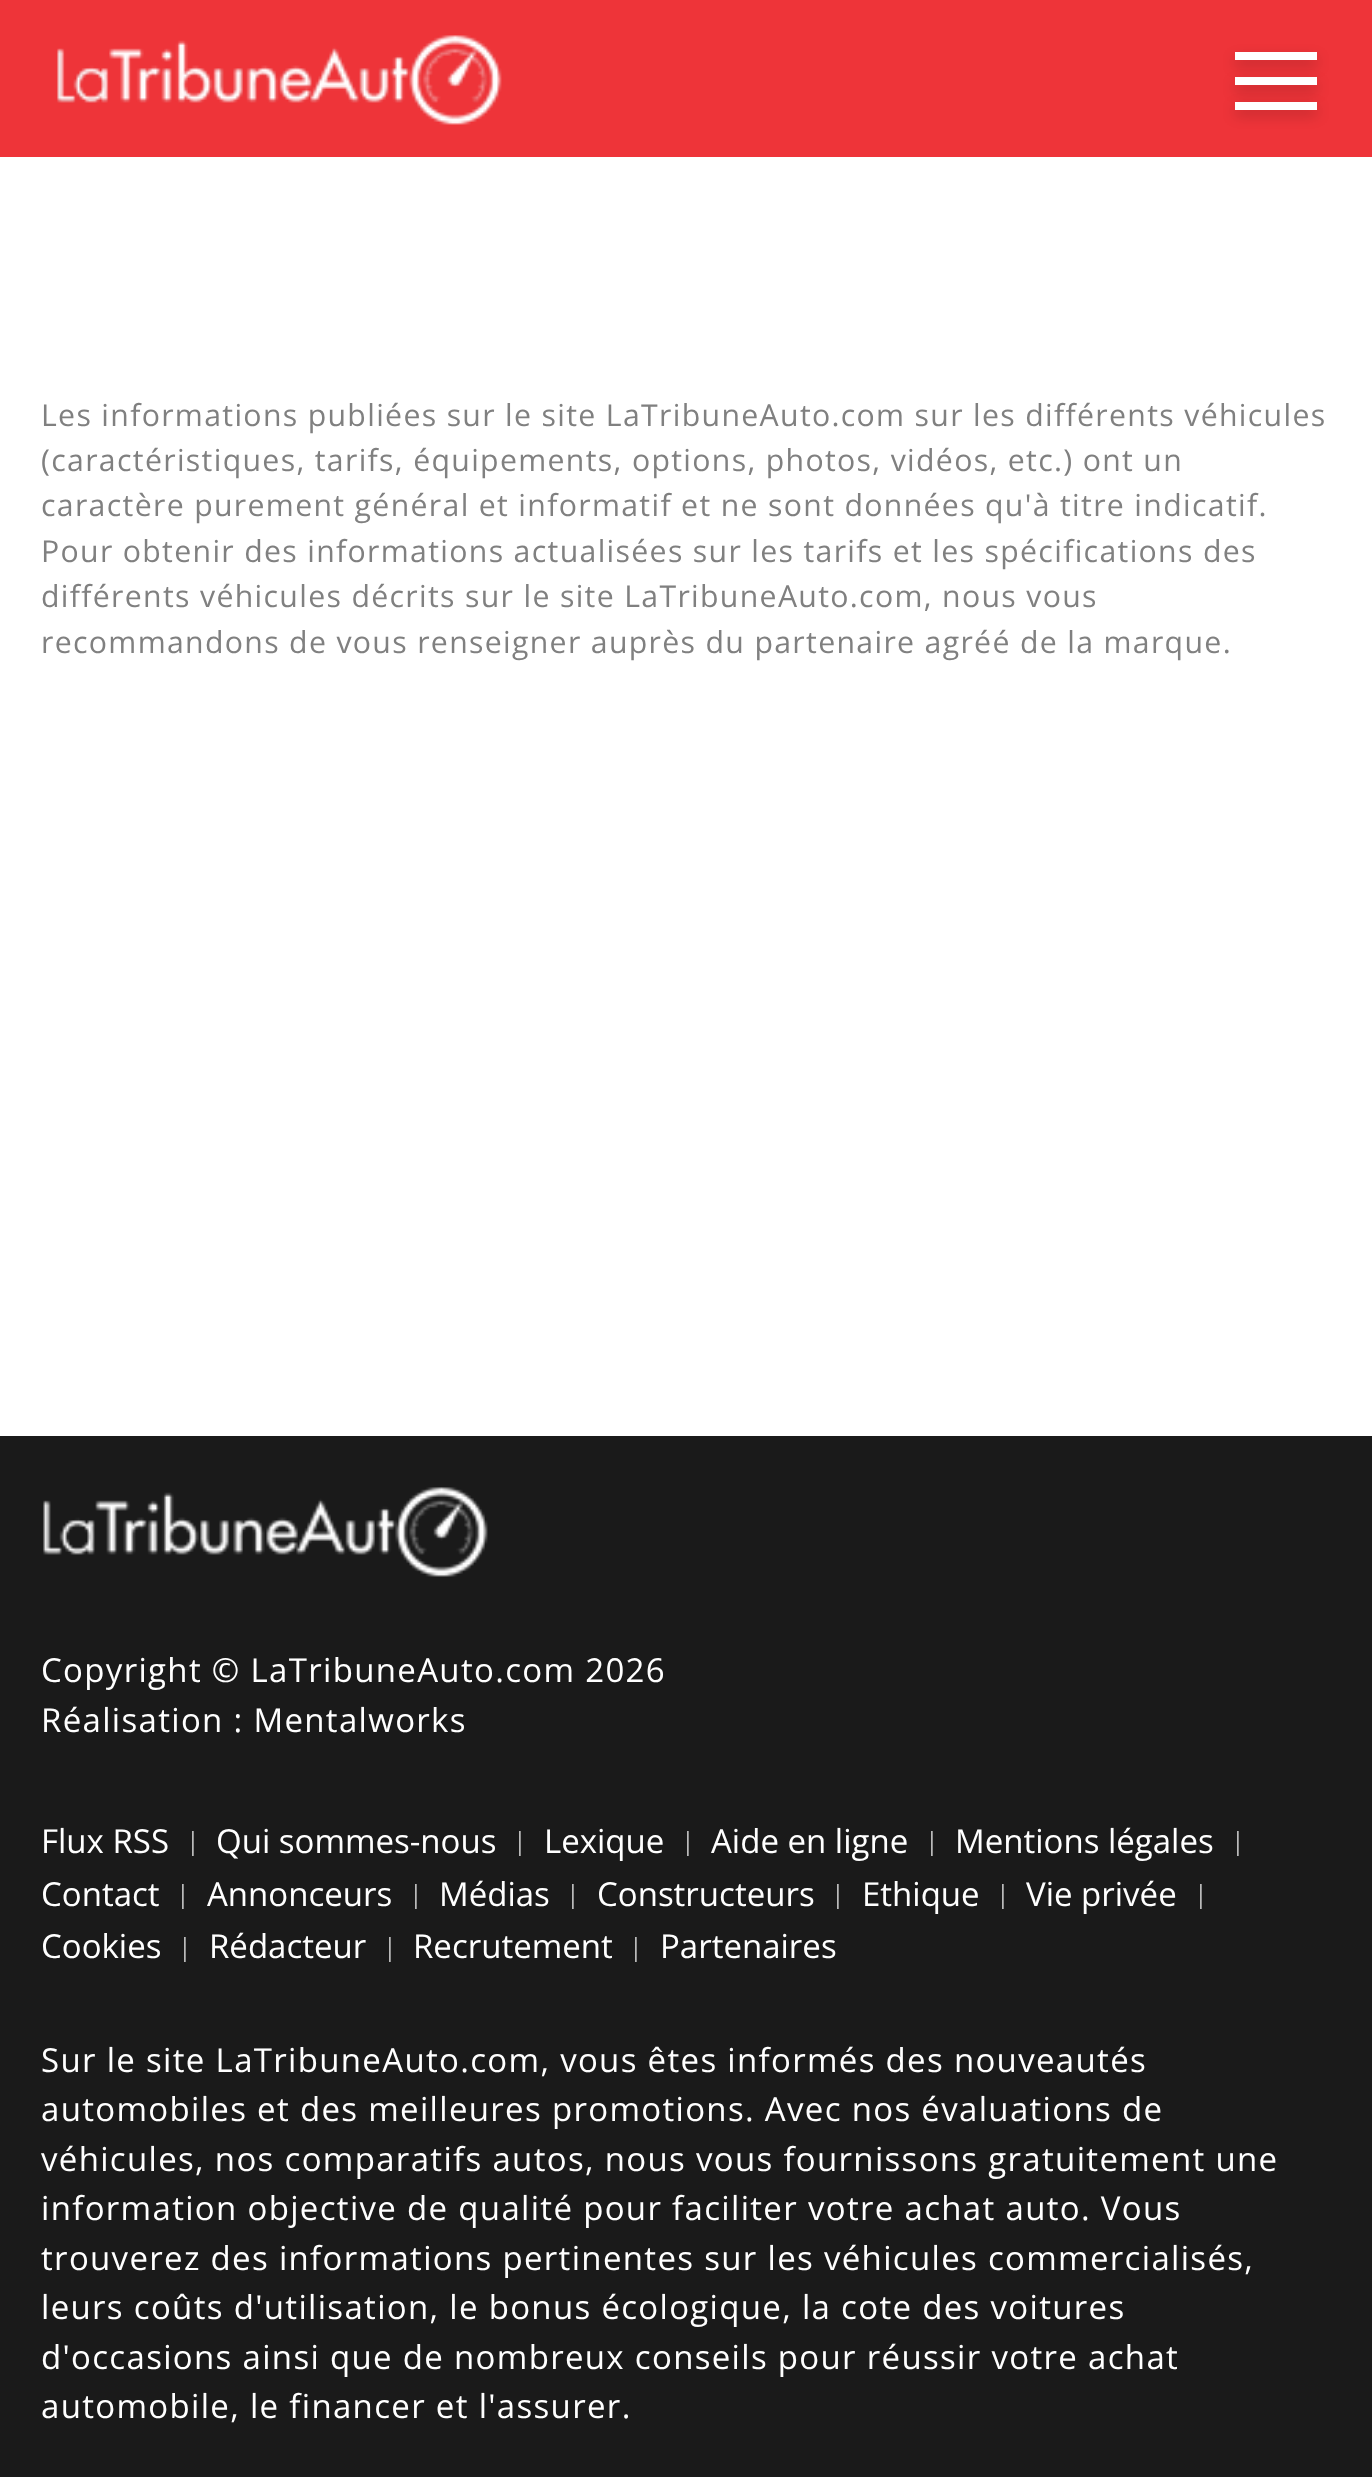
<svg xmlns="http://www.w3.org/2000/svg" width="1372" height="2477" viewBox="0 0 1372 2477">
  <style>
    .t1 { font: 30.25px Open Sans; letter-spacing: 1.32px; fill: #808080; }
    .t2 { font: 33px Open Sans; letter-spacing: 1.32px; fill: #fff; }
    .t3 { font: 33px Open Sans; fill: #fff; }
    .t4 { font: 25px Open Sans; fill: #bababa; }
  </style>
  <rect width="100%" height="100%" fill="#fff"/>
  <rect x="0" y="0" width="1372" height="157" fill="#ee3439"/>
  <image x="57" y="35" width="445" height="90" href="images/1.png"/>
  <rect x="1235" y="83" width="82" height="8" fill="#00000033" filter="blur(7px)"/>
  <rect x="1235" y="77" width="82" height="8" fill="#fff"/>
  <rect x="1235" y="58" width="82" height="8" fill="#00000033" filter="blur(7px)"/>
  <rect x="1235" y="52" width="82" height="8" fill="#fff"/>
  <rect x="1235" y="107" width="82" height="8" fill="#00000033" filter="blur(7px)"/>
  <rect x="1235" y="102" width="82" height="8" fill="#fff"/>
  <text x="41" y="426" class="t1">Les informations publiées sur le site LaTribuneAuto.com sur les différents véhicules</text>
  <text x="41" y="471" class="t1">(caractéristiques, tarifs, équipements, options, photos, vidéos, etc.) ont un</text>
  <text x="41" y="516" class="t1">caractère purement général et informatif et ne sont données qu'à titre indicatif.</text>
  <text x="41" y="562" class="t1">Pour obtenir des informations actualisées sur les tarifs et les spécifications des</text>
  <text x="41" y="607" class="t1">différents véhicules décrits sur le site LaTribuneAuto.com, nous vous</text>
  <text x="41" y="653" class="t1">recommandons de vous renseigner auprès du partenaire agréé de la marque.</text>
  <rect x="0" y="1436" width="1372" height="1041" fill="#1a1a1a"/>
  <image x="43" y="1487" width="445" height="90" href="images/2.png"/>
  <text x="41" y="1682" class="t2">Copyright © LaTribuneAuto.com 2026</text>
  <text x="41" y="1732" class="t2">Réalisation : Mentalworks</text>
  <text x="41" y="1853" class="t3">Flux RSS</text>
  <text x="186" y="1850" class="t4">|</text>
  <text x="216" y="1853" class="t3">Qui sommes-nous</text>
  <text x="513" y="1850" class="t4">|</text>
  <text x="544" y="1853" class="t3">Lexique</text>
  <text x="681" y="1850" class="t4">|</text>
  <text x="711" y="1853" class="t3">Aide en ligne</text>
  <text x="925" y="1850" class="t4">|</text>
  <text x="955" y="1853" class="t3">Mentions légales</text>
  <text x="1231" y="1850" class="t4">|</text>
  <text x="41" y="1906" class="t3">Contact</text>
  <text x="176" y="1903" class="t4">|</text>
  <text x="207" y="1906" class="t3">Annonceurs</text>
  <text x="409" y="1903" class="t4">|</text>
  <text x="439" y="1906" class="t3">Médias</text>
  <text x="566" y="1903" class="t4">|</text>
  <text x="597" y="1906" class="t3">Constructeurs</text>
  <text x="831" y="1903" class="t4">|</text>
  <text x="862" y="1906" class="t3">Ethique</text>
  <text x="996" y="1903" class="t4">|</text>
  <text x="1026" y="1906" class="t3">Vie privée</text>
  <text x="1194" y="1903" class="t4">|</text>
  <text x="41" y="1958" class="t3">Cookies</text>
  <text x="178" y="1956" class="t4">|</text>
  <text x="209" y="1958" class="t3">Rédacteur</text>
  <text x="383" y="1956" class="t4">|</text>
  <text x="413" y="1958" class="t3">Recrutement</text>
  <text x="629" y="1956" class="t4">|</text>
  <text x="660" y="1958" class="t3">Partenaires</text>
  <text x="41" y="2072" class="t2">Sur le site LaTribuneAuto.com, vous êtes informés des nouveautés</text>
  <text x="41" y="2121" class="t2">automobiles et des meilleures promotions. Avec nos évaluations de</text>
  <text x="41" y="2171" class="t2">véhicules, nos comparatifs autos, nous vous fournissons gratuitement une</text>
  <text x="41" y="2220" class="t2">information objective de qualité pour faciliter votre achat auto. Vous</text>
  <text x="41" y="2270" class="t2">trouverez des informations pertinentes sur les véhicules commercialisés,</text>
  <text x="41" y="2319" class="t2">leurs coûts d'utilisation, le bonus écologique, la cote des voitures</text>
  <text x="41" y="2369" class="t2">d'occasions ainsi que de nombreux conseils pour réussir votre achat</text>
  <text x="41" y="2418" class="t2">automobile, le financer et l'assurer.</text>
</svg>
